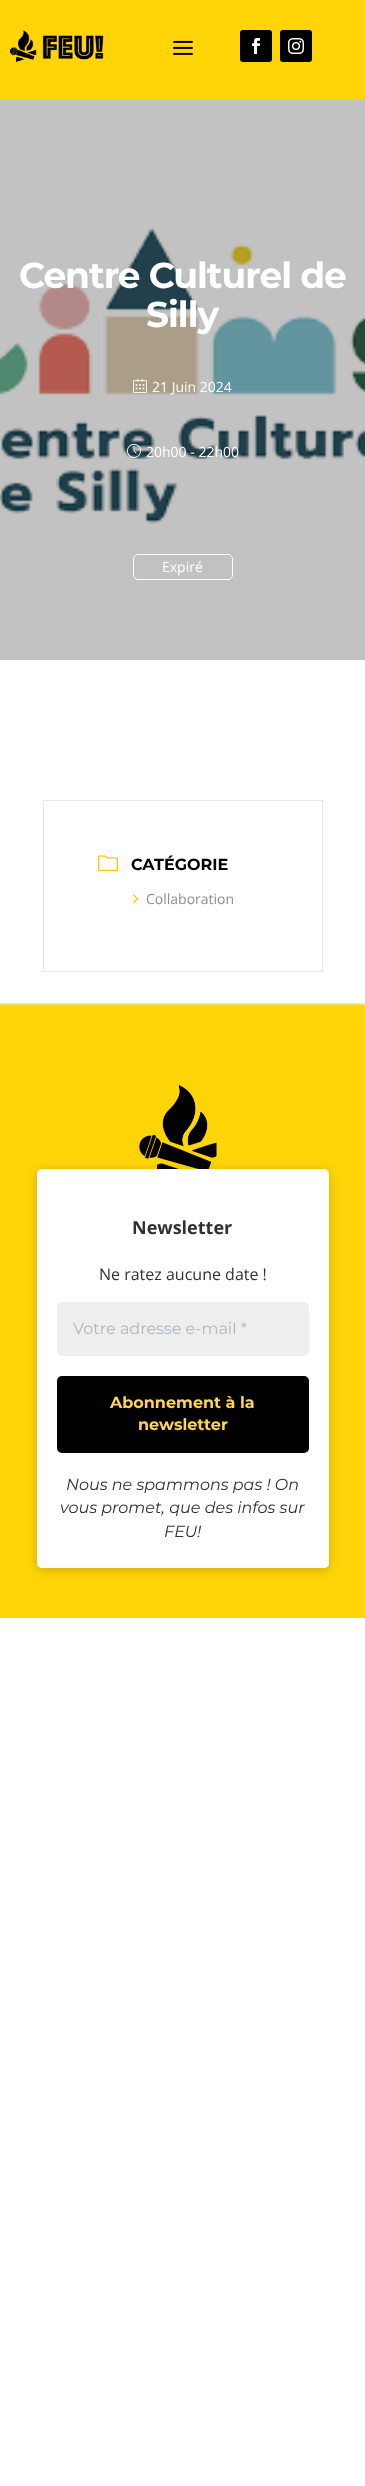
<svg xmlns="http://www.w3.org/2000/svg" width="365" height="2486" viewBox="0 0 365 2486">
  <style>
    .t1 { font: bold 36px Montserrat; letter-spacing: -1px; fill: #fff; }
    .t2 { font: 14px Open Sans; fill: #fff; }
    .t3 { font: bold 16px Montserrat; fill: #000; }
    .t4 { font: 14px Open Sans; fill: #8d8d8d; }
    .t5 { font: bold 18px Open Sans; fill: #313131; }
    .t6 { font: 16px Open Sans; fill: #313131; }
    .t7 { font: 16px Montserrat; fill: #abb8c3; }
    .t8 { font: bold 16px Montserrat; fill: #ffd456; }
    .t9 { font: italic 16px Montserrat; fill: #313131; }
  </style>
  <rect width="100%" height="100%" fill="#fff"/>
  <rect x="0" y="100" width="365" height="560" fill="#c2c2c2"/>
  <rect x="0" y="0" width="365" height="100" fill="#ffd508"/>
  <image x="10" y="30" width="94" height="32" href="images/1.png"/>
  <image x="173" y="40" width="20" height="15" href="images/2.png"/>
  <rect x="240" y="30" width="32" height="32" rx="3" fill="#000"/>
  <image x="252" y="38" width="8" height="16" href="images/3.png"/>
  <rect x="280" y="30" width="32" height="32" rx="3" fill="#000"/>
  <image x="288" y="38" width="16" height="16" href="images/4.png"/>
  <image x="0" y="227" width="365" height="297" href="images/5.png"/>
  <text x="19" y="288" class="t1">Centre Culturel de</text>
  <text x="146" y="327" class="t1">Silly</text>
  <image x="133" y="378" width="14" height="15" href="images/6.png"/>
  <text x="152" y="392" class="t2">21 Juin 2024</text>
  <rect x="133.5" y="554.5" width="99" height="25" rx="4.5" fill="none" stroke="#fff"/>
  <text x="162" y="572" class="t2">Expiré</text>
  <image x="127" y="443" width="14" height="15" href="images/7.png"/>
  <text x="146" y="457" class="t2">20h00 - 22h00</text>
  <rect x="43.5" y="800.5" width="279" height="171" fill="none" stroke="#e6e7e8"/>
  <image x="98" y="855" width="20" height="17" href="images/8.png"/>
  <text x="131" y="870" class="t3">CATÉGORIE</text>
  <image x="133" y="894" width="6" height="10" href="images/9.png"/>
  <text x="146" y="904" class="t4">Collaboration</text>
  <rect x="0" y="1005" width="365" height="613" fill="#ffd508"/>
  <rect x="0" y="1003" width="365" height="2" fill="#ffe46d"/>
  <image x="139" y="1085" width="78" height="84" href="images/10.png"/>
  <rect x="37" y="1171" width="292" height="399" rx="5" fill="#00000033" filter="blur(5.5px)"/>
  <rect x="37" y="1169" width="292" height="399" rx="5" fill="#fff"/>
  <rect x="37" y="1183" width="292" height="385" rx="5" fill="#fff"/>
  <text x="132" y="1234" class="t5">Newsletter</text>
  <text x="99" y="1280" class="t6">Ne ratez aucune date !</text>
  <rect x="57" y="1302" width="252" height="54" rx="5" fill="#eee"/>
  <text x="73" y="1334" class="t7">Votre adresse e-mail *</text>
  <rect x="57" y="1376" width="252" height="77" rx="5" fill="#000"/>
  <text x="110" y="1408" class="t8">Abonnement à la</text>
  <text x="138" y="1430" class="t8">newsletter</text>
  <text x="66" y="1490" class="t9">Nous ne spammons pas ! On</text>
  <text x="60" y="1513" class="t9">vous promet, que des infos sur</text>
  <text x="164" y="1537" class="t9">FEU!</text>
</svg>
